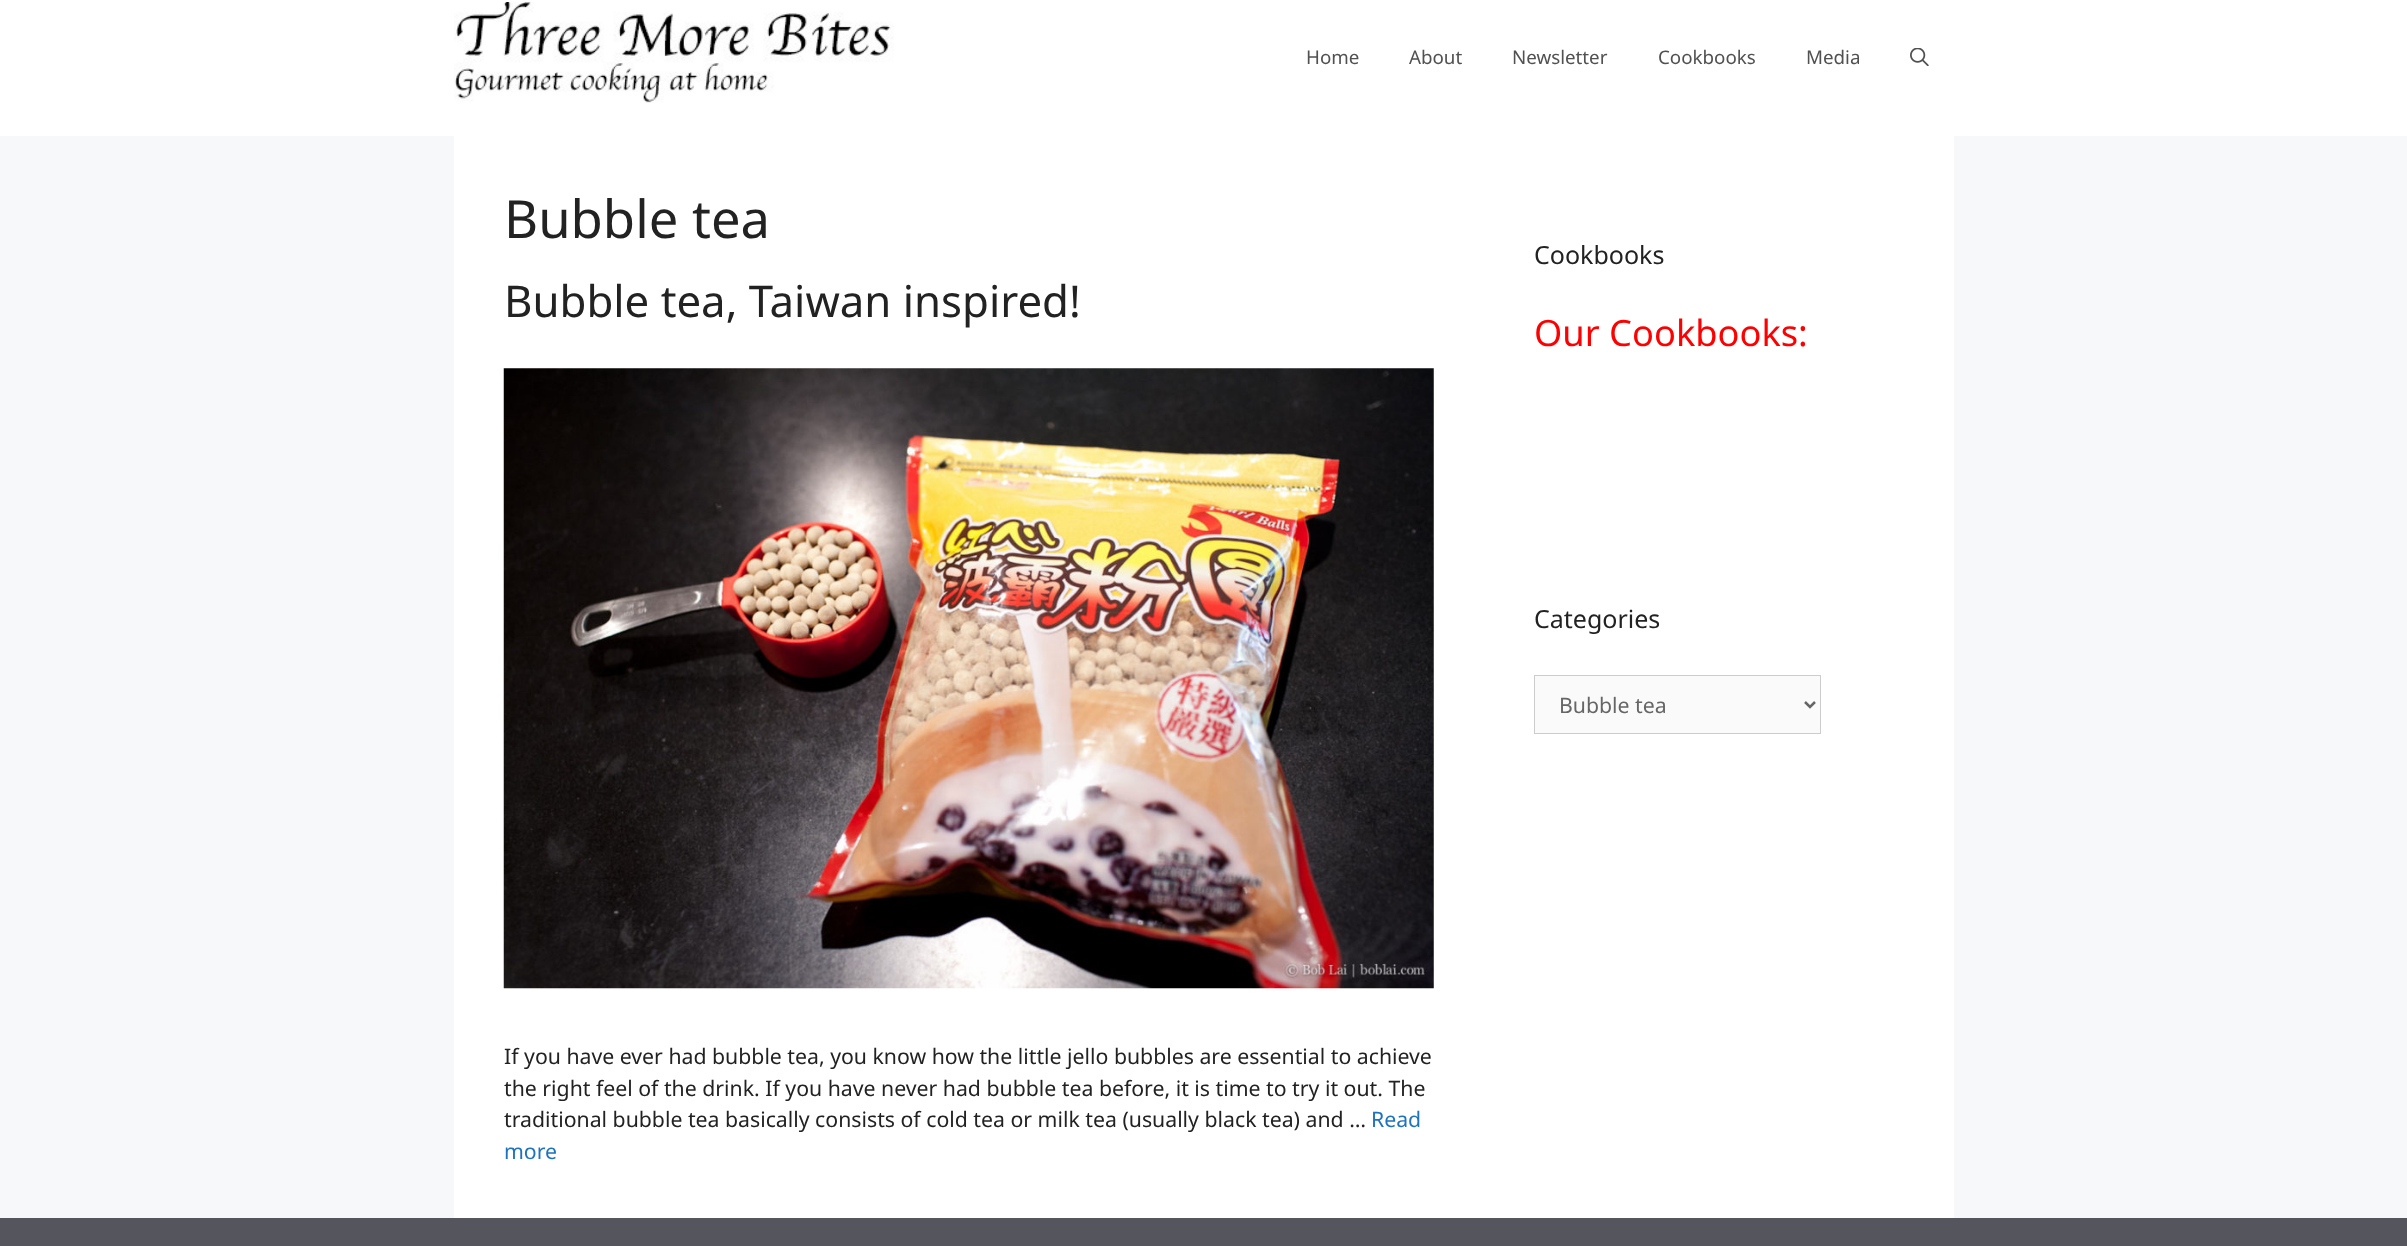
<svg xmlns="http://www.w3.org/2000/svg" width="2407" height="1246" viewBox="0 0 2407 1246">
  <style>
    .t1 { font: 18.75px Noto Sans; fill: #515151; }
    .t2 { font: 52.5px Noto Sans; fill: #222; }
    .t3 { font: 43.75px Noto Sans; fill: #222; }
    .t4 { font: 21.25px Noto Sans; fill: #222; }
    .t5 { font: 21.25px Noto Sans; fill: #1e73be; }
    .t6 { font: 25px Noto Sans; fill: #222; }
    .t7 { font: 36.25px Noto Sans; fill: #f00; }
    .t8 { font: 21.25px Noto Sans; fill: #666; }
  </style>
  <rect width="100%" height="100%" fill="#f7f8f9"/>
  <rect x="0" y="0" width="2407" height="136" fill="#fff"/>
  <image x="454" y="2" width="440" height="101" href="images/1.png"/>
  <text x="1306" y="64" class="t1">Home</text>
  <text x="1409" y="64" class="t1">About</text>
  <text x="1512" y="64" class="t1">Newsletter</text>
  <text x="1658" y="64" class="t1">Cookbooks</text>
  <text x="1806" y="64" class="t1">Media</text>
  <image x="1910" y="48" width="19" height="18" href="images/2.png"/>
  <rect x="454" y="136" width="1500" height="1082" fill="#fff"/>
  <text x="504" y="238" class="t2">Bubble tea</text>
  <text x="504" y="317" class="t3">Bubble tea, Taiwan inspired!</text>
  <image x="503" y="368" width="931" height="621" href="images/3.png"/>
  <text x="504" y="1064" class="t4">If you have ever had bubble tea, you know how the little jello bubbles are essential to achieve</text>
  <text x="504" y="1096" class="t4">the right feel of the drink. If you have never had bubble tea before, it is time to try it out. The</text>
  <text x="504" y="1127" class="t4">traditional bubble tea basically consists of cold tea or milk tea (usually black tea) and …</text>
  <text x="1371" y="1127" class="t5">Read</text>
  <text x="504" y="1159" class="t5">more</text>
  <text x="1534" y="264" class="t6">Cookbooks</text>
  <text x="1534" y="346" class="t7">Our Cookbooks:</text>
  <text x="1534" y="628" class="t6">Categories</text>
  <rect x="1534.5" y="675.5" width="286" height="58" fill="#fafafa" stroke="#ccc"/>
  <path d="M1805 702L1810 707L1815 702" fill="none" stroke="#666" stroke-width="2.5"/>
  <text x="1559" y="713" class="t8">Bubble tea</text>
  <rect x="0" y="1218" width="2407" height="28" fill="#55555e"/>
</svg>
